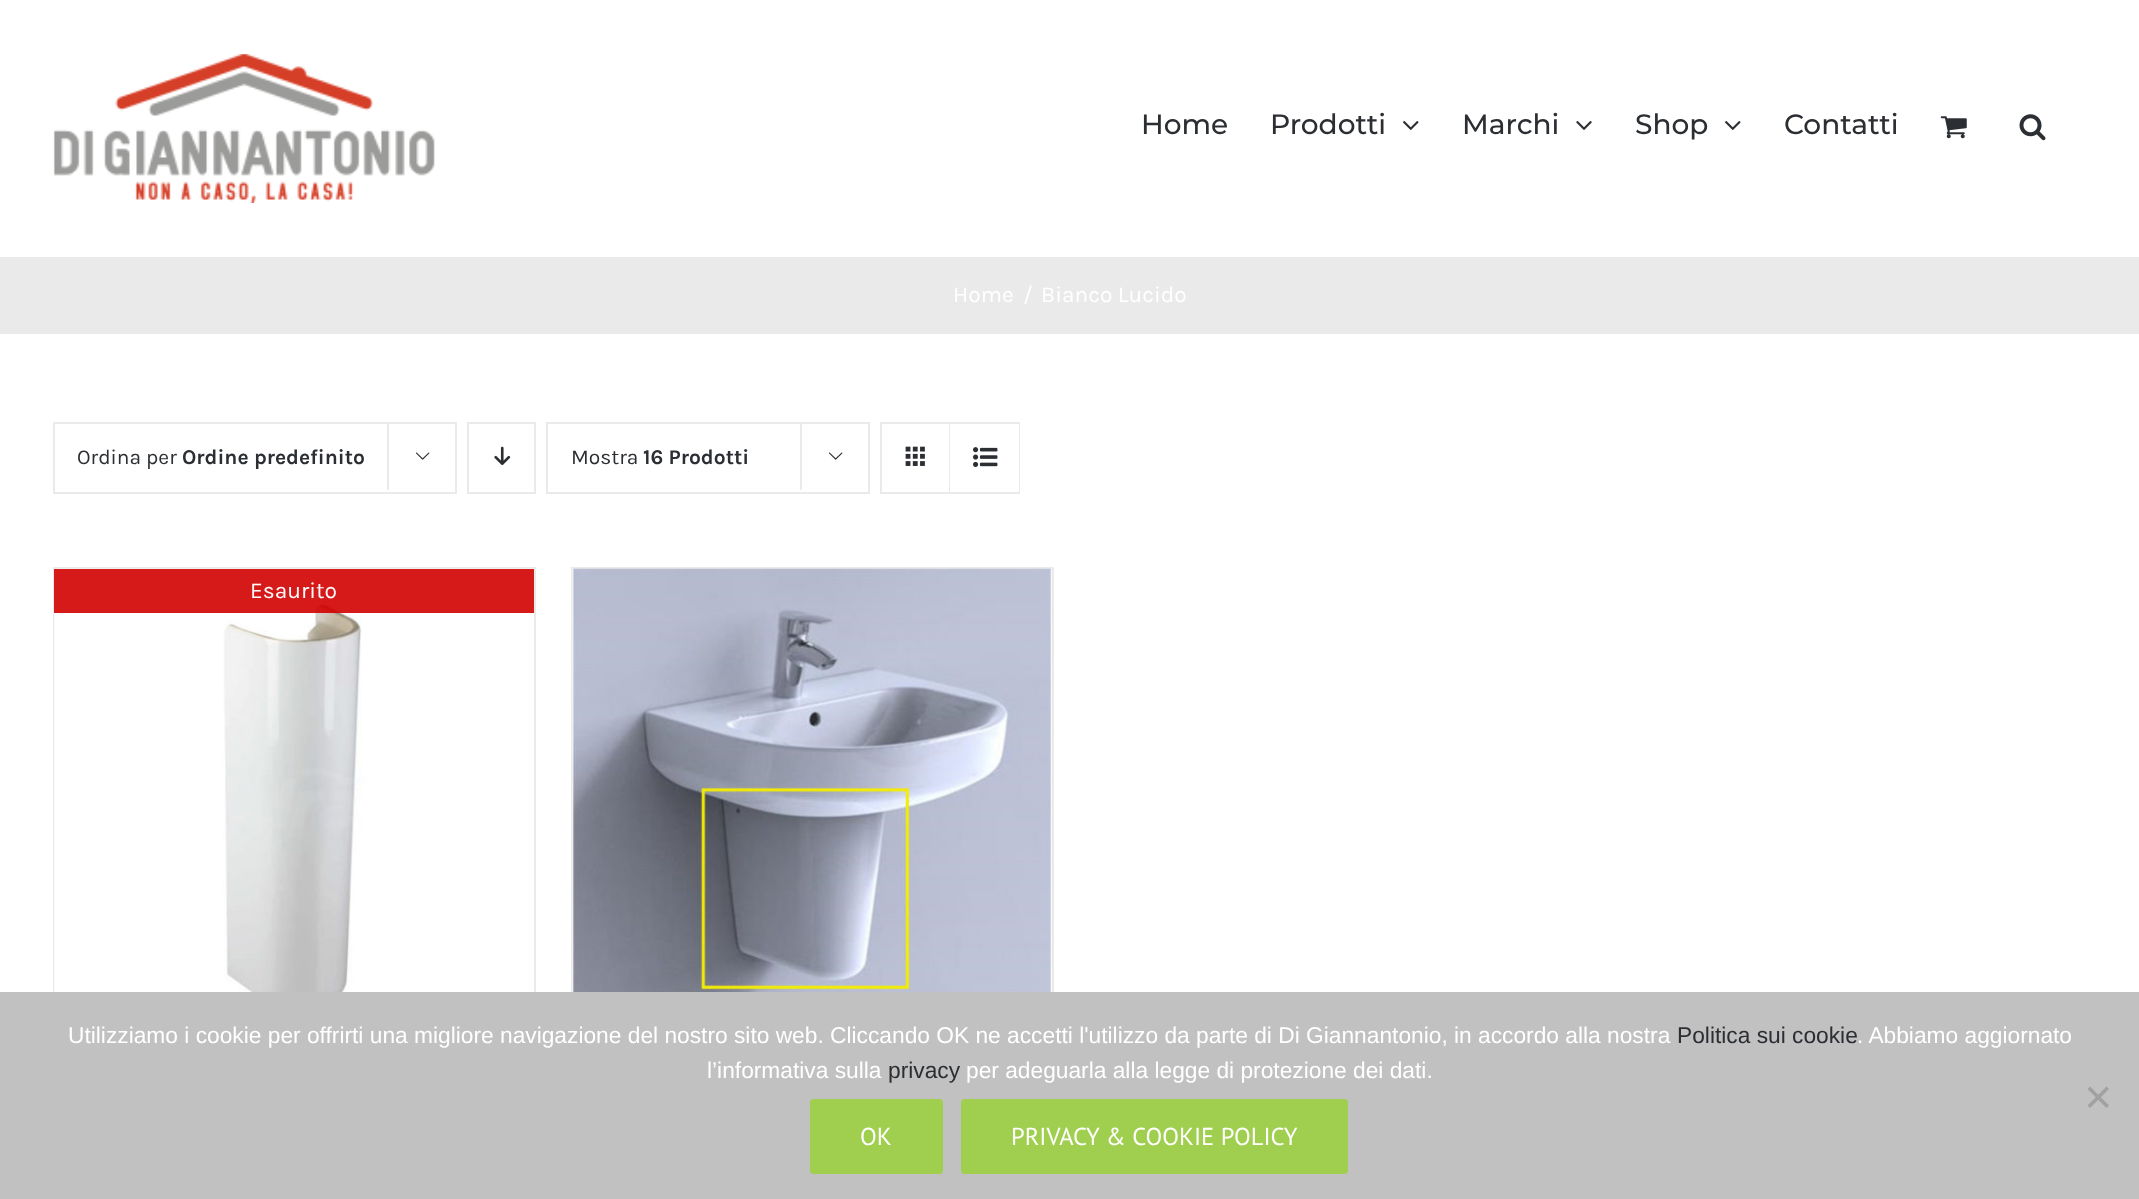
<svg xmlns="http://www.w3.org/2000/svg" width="2139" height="1199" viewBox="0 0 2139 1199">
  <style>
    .t1 { font: 100 28px Montserrat; fill: #2b2e32; }
    .t2 { font: 22.75px Karla; fill: #fff; }
    .t3 { font: 21px Karla; fill: #2b2e32; }
    .t4 { font: bold 21px Karla; fill: #2b2e32; }
    .t5 { font: 22.75px Liberation Sans; fill: #fff; }
    .t6 { font: 22.75px Liberation Sans; fill: #2b2e32; }
    .t7 { font: 24.5px PT Sans; fill: #fff; }
  </style>
  <rect width="100%" height="100%" fill="#fff"/>
  <image x="53" y="54" width="382" height="149" href="images/1.png"/>
  <text x="1141" y="134" class="t1">Home</text>
  <text x="1270" y="134" class="t1">Prodotti</text>
  <image x="1403" y="121" width="16" height="9" href="images/2.png"/>
  <text x="1462" y="134" class="t1">Marchi</text>
  <image x="1576" y="121" width="16" height="9" href="images/3.png"/>
  <text x="1635" y="134" class="t1">Shop</text>
  <image x="1725" y="121" width="16" height="9" href="images/2.png"/>
  <text x="1784" y="134" class="t1">Contatti</text>
  <image x="1940" y="116" width="27" height="23" href="images/4.png"/>
  <image x="2019" y="114" width="27" height="27" href="images/5.png"/>
  <rect x="0" y="257" width="2139" height="77" fill="#eaeaea"/>
  <text x="953" y="302" class="t2">Home</text>
  <text x="1023" y="302" class="t2">/</text>
  <text x="1041" y="302" class="t2">Bianco Lucido</text>
  <rect x="54" y="423" width="402" height="70" fill="none" stroke="#eaeaea" stroke-width="2"/>
  <text x="77" y="464" class="t3">Ordina per</text>
  <text x="182" y="464" class="t4">Ordine predefinito</text>
  <rect x="387" y="422" width="2" height="68" fill="#eaeaea"/>
  <image x="415" y="452" width="15" height="8" href="images/6.png"/>
  <rect x="468" y="423" width="67" height="70" fill="none" stroke="#eaeaea" stroke-width="2"/>
  <image x="494" y="446" width="17" height="19" href="images/7.png"/>
  <rect x="547" y="423" width="322" height="70" fill="none" stroke="#eaeaea" stroke-width="2"/>
  <text x="571" y="464" class="t3">Mostra</text>
  <text x="643" y="464" class="t4">16 Prodotti</text>
  <rect x="800" y="422" width="2" height="68" fill="#eaeaea"/>
  <image x="828" y="452" width="15" height="8" href="images/6.png"/>
  <rect x="881" y="423" width="138" height="70" fill="none" stroke="#eaeaea" stroke-width="2"/>
  <rect x="949" y="424" width="1" height="68" fill="#eaeaea"/>
  <image x="905" y="446" width="20" height="20" href="images/8.png"/>
  <rect x="1018" y="424" width="1" height="68" fill="#fff"/>
  <image x="973" y="447" width="25" height="20" href="images/9.png"/>
  <rect x="53" y="567" width="483" height="2" fill="#eaeaea"/>
  <rect x="534" y="567" width="2" height="425" fill="#eaeaea"/>
  <rect x="53" y="567" width="2" height="425" fill="#eaeaea"/>
  <image x="54" y="568" width="479" height="424" href="images/10.png"/>
  <rect x="54" y="569" width="480" height="44" fill="#d20000e6"/>
  <text x="250" y="598" class="t2">Esaurito</text>
  <rect x="571" y="567" width="483" height="2" fill="#eaeaea"/>
  <rect x="1052" y="567" width="2" height="425" fill="#eaeaea"/>
  <rect x="571" y="567" width="2" height="425" fill="#eaeaea"/>
  <image x="572" y="568" width="480" height="424" href="images/11.png"/>
  <rect x="0" y="992" width="2139" height="207" fill="#c1c1c1"/>
  <text x="68" y="1043" class="t5">Utilizziamo i cookie per offrirti una migliore navigazione del nostro sito web. Cliccando OK ne accetti l'utilizzo da parte di Di Giannantonio, in accordo alla nostra</text>
  <text x="1677" y="1043" class="t6">Politica sui cookie</text>
  <text x="1857" y="1043" class="t5">. Abbiamo aggiornato</text>
  <text x="707" y="1078" class="t5">l’informativa sulla</text>
  <text x="888" y="1078" class="t6">privacy</text>
  <text x="966" y="1078" class="t5">per adeguarla alla legge di protezione dei dati.</text>
  <path d="M2106.5 1086.5L2109 1089L2090 1108L2087.5 1105.5Z" fill="#a1a1a1"/>
  <path d="M2087.5 1089L2090 1086.5L2109 1105.5L2106.5 1108Z" fill="#a1a1a1"/>
  <rect x="810" y="1099" width="133" height="75" rx="4" fill="#a0ce4e"/>
  <text x="860" y="1145" class="t7">OK</text>
  <rect x="961" y="1099" width="387" height="75" rx="4" fill="#a0ce4e"/>
  <text x="1011" y="1145" class="t7">PRIVACY &amp; COOKIE POLICY</text>
</svg>
